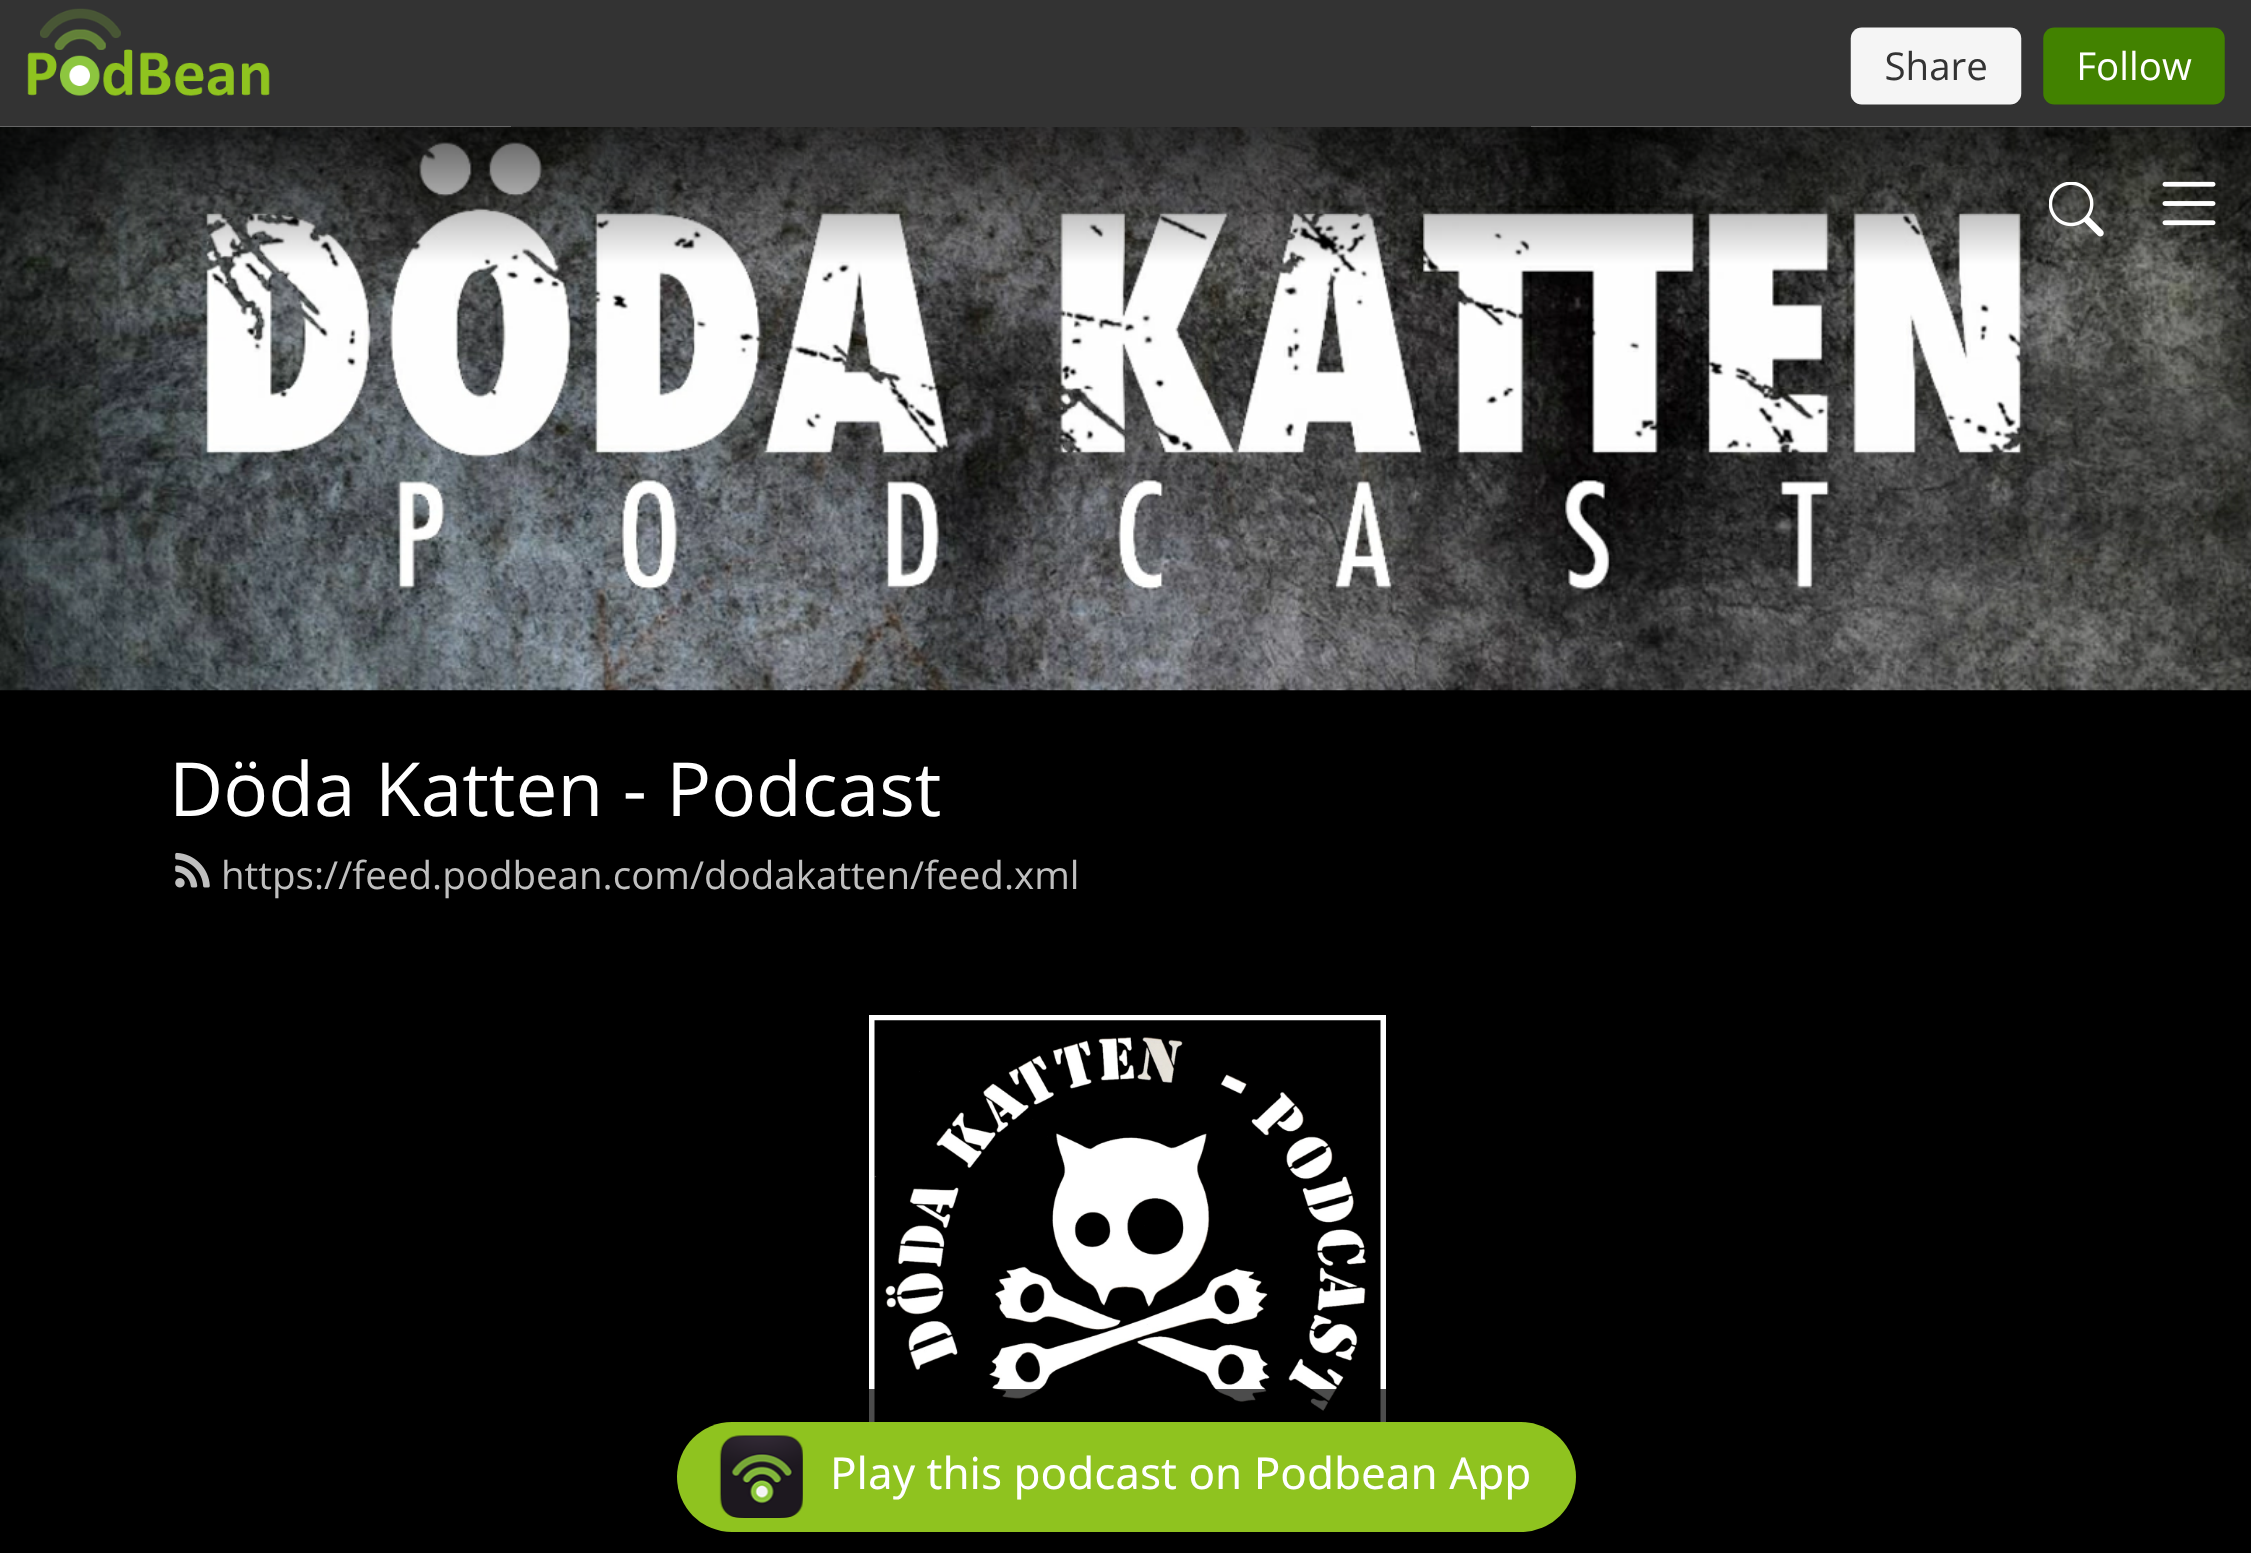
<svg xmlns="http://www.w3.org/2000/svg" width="2251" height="1553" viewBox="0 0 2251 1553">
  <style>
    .t1 { font: 74.75px Open Sans; fill: #fff; }
    .t2 { font: 38.5px Open Sans; fill: #bfbfbf; }
    .t3 { font: 44px Noto Sans; fill: #fff; }
  </style>
  <rect width="100%" height="100%" fill="#000"/>
  <rect x="0" y="0" width="2251" height="8" fill="#333"/>
  <image x="0" y="8" width="2251" height="119" href="images/1.png"/>
  <image x="0" y="127" width="2251" height="564" href="images/4.png"/>
  <image x="2049" y="182" width="55" height="55" href="images/2.png"/>
  <image x="2162" y="181" width="54" height="45" href="images/3.png"/>
  <text x="169" y="816" class="t1">Döda Katten - Podcast</text>
  <image x="175" y="852" width="35" height="36" href="images/5.png"/>
  <text x="221" y="889" class="t2">https://feed.podbean.com/dodakatten/feed.xml</text>
  <rect x="872" y="1018" width="511" height="511" fill="none" stroke="#fff" stroke-width="6"/>
  <image x="874" y="1020" width="507" height="402" href="images/6.png"/>
  <rect x="869" y="1389" width="517" height="143" fill="#000000b3"/>
  <rect x="677" y="1422" width="899" height="110" rx="55" fill="#8fc31f"/>
  <image x="719" y="1435" width="84" height="83" href="images/7.png"/>
  <text x="830" y="1489" class="t3">Play this podcast on Podbean App</text>
</svg>
